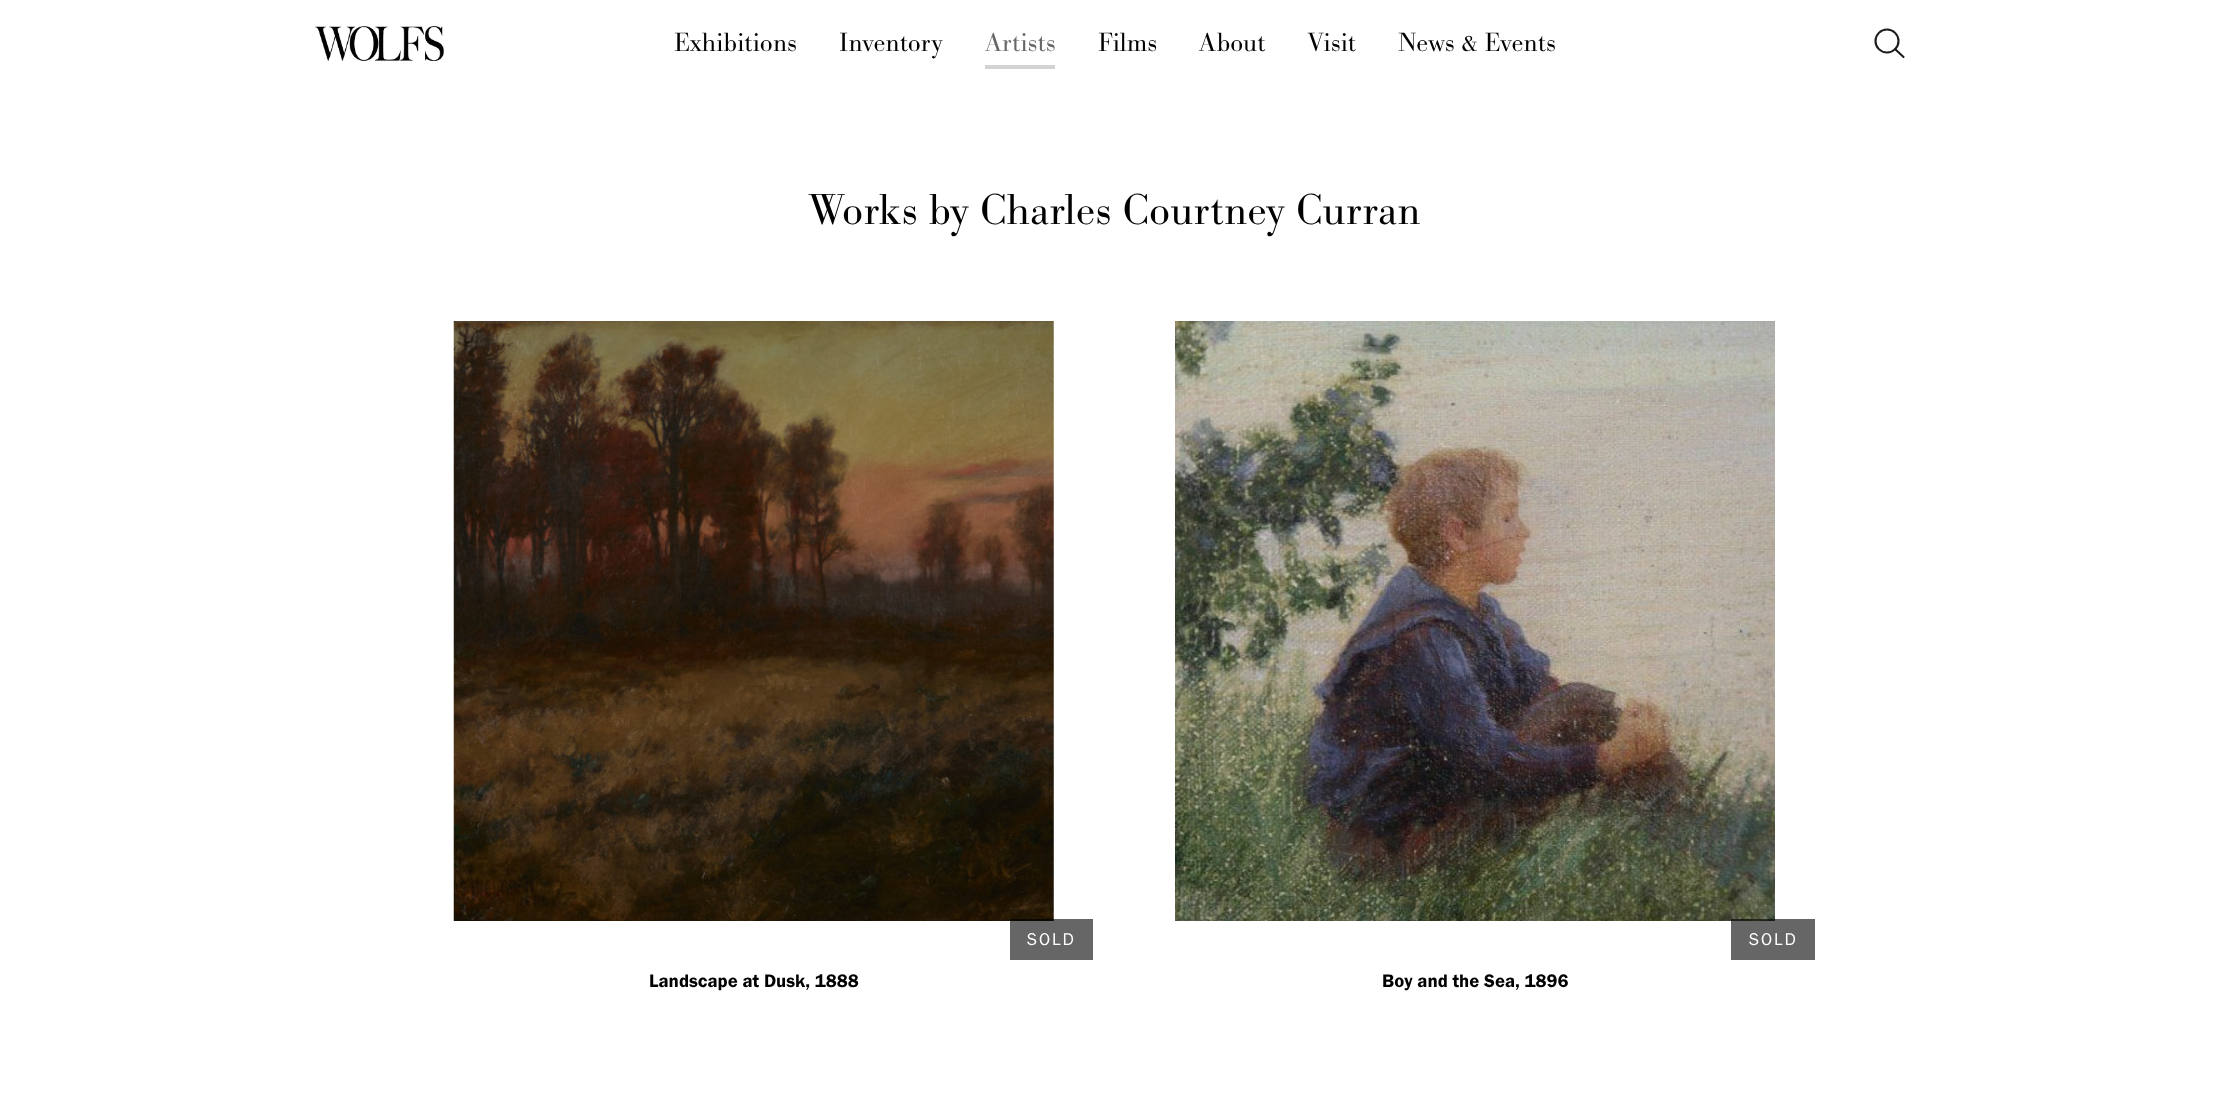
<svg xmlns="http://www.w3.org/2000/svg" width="2228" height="1096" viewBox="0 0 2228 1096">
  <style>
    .t1 { font: 300 27.5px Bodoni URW; fill: #000; }
    .t2 { font: 300 27.5px Bodoni URW; fill: #666; }
    .t3 { font: 300 45px Bodoni URW; fill: #000; }
    .t4 { font: 17.5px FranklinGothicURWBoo; letter-spacing: 2px; fill: #fff; }
    .t5 { font: 18.75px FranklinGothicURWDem; fill: #000; }
  </style>
  <rect width="100%" height="100%" fill="#fff"/>
  <image x="315" y="26" width="129" height="35" href="images/1.png"/>
  <text x="674" y="51" class="t1">Exhibitions</text>
  <text x="839" y="51" class="t1">Inventory</text>
  <text x="985" y="51" class="t2">Artists</text>
  <rect x="985" y="65" width="70" height="4" fill="#d3d3d4"/>
  <text x="1098" y="51" class="t1">Films</text>
  <text x="1199" y="51" class="t1">About</text>
  <text x="1308" y="51" class="t1">Visit</text>
  <text x="1398" y="51" class="t1">News &amp; Events</text>
  <path d="M1903.5 57L1895 49" fill="none" stroke="#1c1c21" stroke-width="2.1" stroke-linecap="round" stroke-linejoin="round"/>
  <circle cx="1887" cy="41" r="11.5" fill="none" stroke="#1c1c21" stroke-width="2.1"/>
  <text x="809" y="224" class="t3">Works by Charles Courtney Curran</text>
  <image x="453" y="321" width="601" height="600" href="images/2.png"/>
  <rect x="1010" y="919" width="83" height="41" fill="#00000099"/>
  <text x="1027" y="945" class="t4">SOLD</text>
  <text x="649" y="987" class="t5">Landscape at Dusk, 1888</text>
  <image x="1175" y="321" width="600" height="600" href="images/3.png"/>
  <rect x="1731" y="919" width="84" height="41" fill="#00000099"/>
  <text x="1749" y="945" class="t4">SOLD</text>
  <text x="1382" y="987" class="t5">Boy and the Sea, 1896</text>
</svg>
